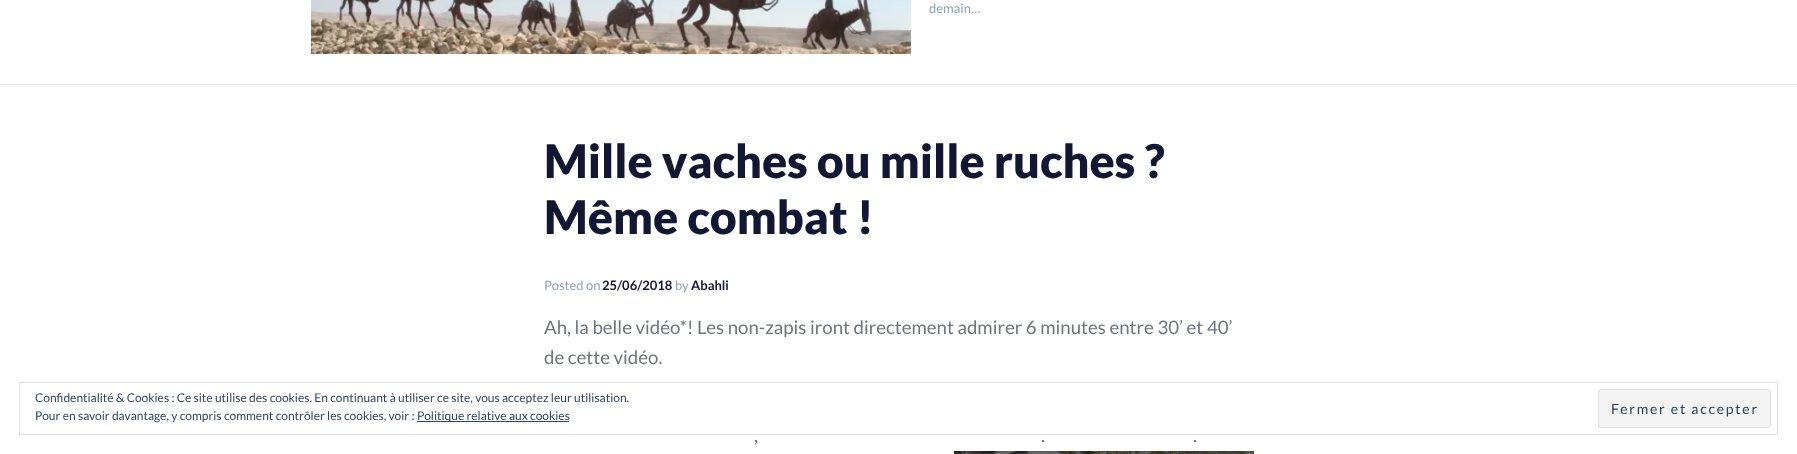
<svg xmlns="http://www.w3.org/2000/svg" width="1797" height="454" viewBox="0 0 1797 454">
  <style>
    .t1 { font: 13px Lato; fill: #91a3b0; }
    .t2 { font: 900 46.5px Lato; fill: #121733; }
    .t3 { font: bold 13px Lato; fill: #121733; }
    .t4 { font: 18.65px Lato; fill: #6e7381; }
    .t5 { font: 12px Lato; fill: #2e4467; }
    .t6 { font: 14px Lato; letter-spacing: 1.75px; fill: #2e4453; }
  </style>
  <rect width="100%" height="100%" fill="#fff"/>
  <rect x="0" y="84" width="1797" height="1" fill="#e8ecf1"/>
  <image x="311" y="0" width="600" height="54" href="images/1.png"/>
  <text x="929" y="13" class="t1">demain…</text>
  <text x="544" y="178" class="t2">Mille vaches ou mille ruches ?</text>
  <text x="544" y="234" class="t2">Même combat !</text>
  <text x="544" y="290" class="t1">Posted on</text>
  <text x="602" y="290" class="t3">25/06/2018</text>
  <text x="675" y="290" class="t1">by</text>
  <text x="691" y="290" class="t3">Abahli</text>
  <text x="544" y="334" class="t4">Ah, la belle vidéo*! Les non-zapis iront directement admirer 6 minutes entre 30’ et 40’</text>
  <text x="544" y="364" class="t4">de cette vidéo.</text>
  <text x="754" y="442" class="t4">,</text>
  <text x="1041" y="442" class="t4">.</text>
  <text x="1193" y="442" class="t4">.</text>
  <image x="954" y="451" width="300" height="3" href="images/2.png"/>
  <rect x="19.5" y="382.5" width="1758" height="52" fill="none" stroke="#dedede"/>
  <text x="35" y="402" class="t5">Confidentialité &amp; Cookies : Ce site utilise des cookies. En continuant à utiliser ce site, vous acceptez leur utilisation.</text>
  <text x="35" y="420" class="t5">Pour en savoir davantage, y compris comment contrôler les cookies, voir :</text>
  <rect x="417" y="421" width="152" height="1" fill="#2e4467"/>
  <text x="417" y="420" class="t5">Politique relative aux cookies</text>
  <rect x="1598.5" y="389.5" width="172" height="38" rx="2.5" fill="#f3f3f3" stroke="#dedede"/>
  <text x="1611" y="414" class="t6">Fermer et accepter</text>
</svg>
